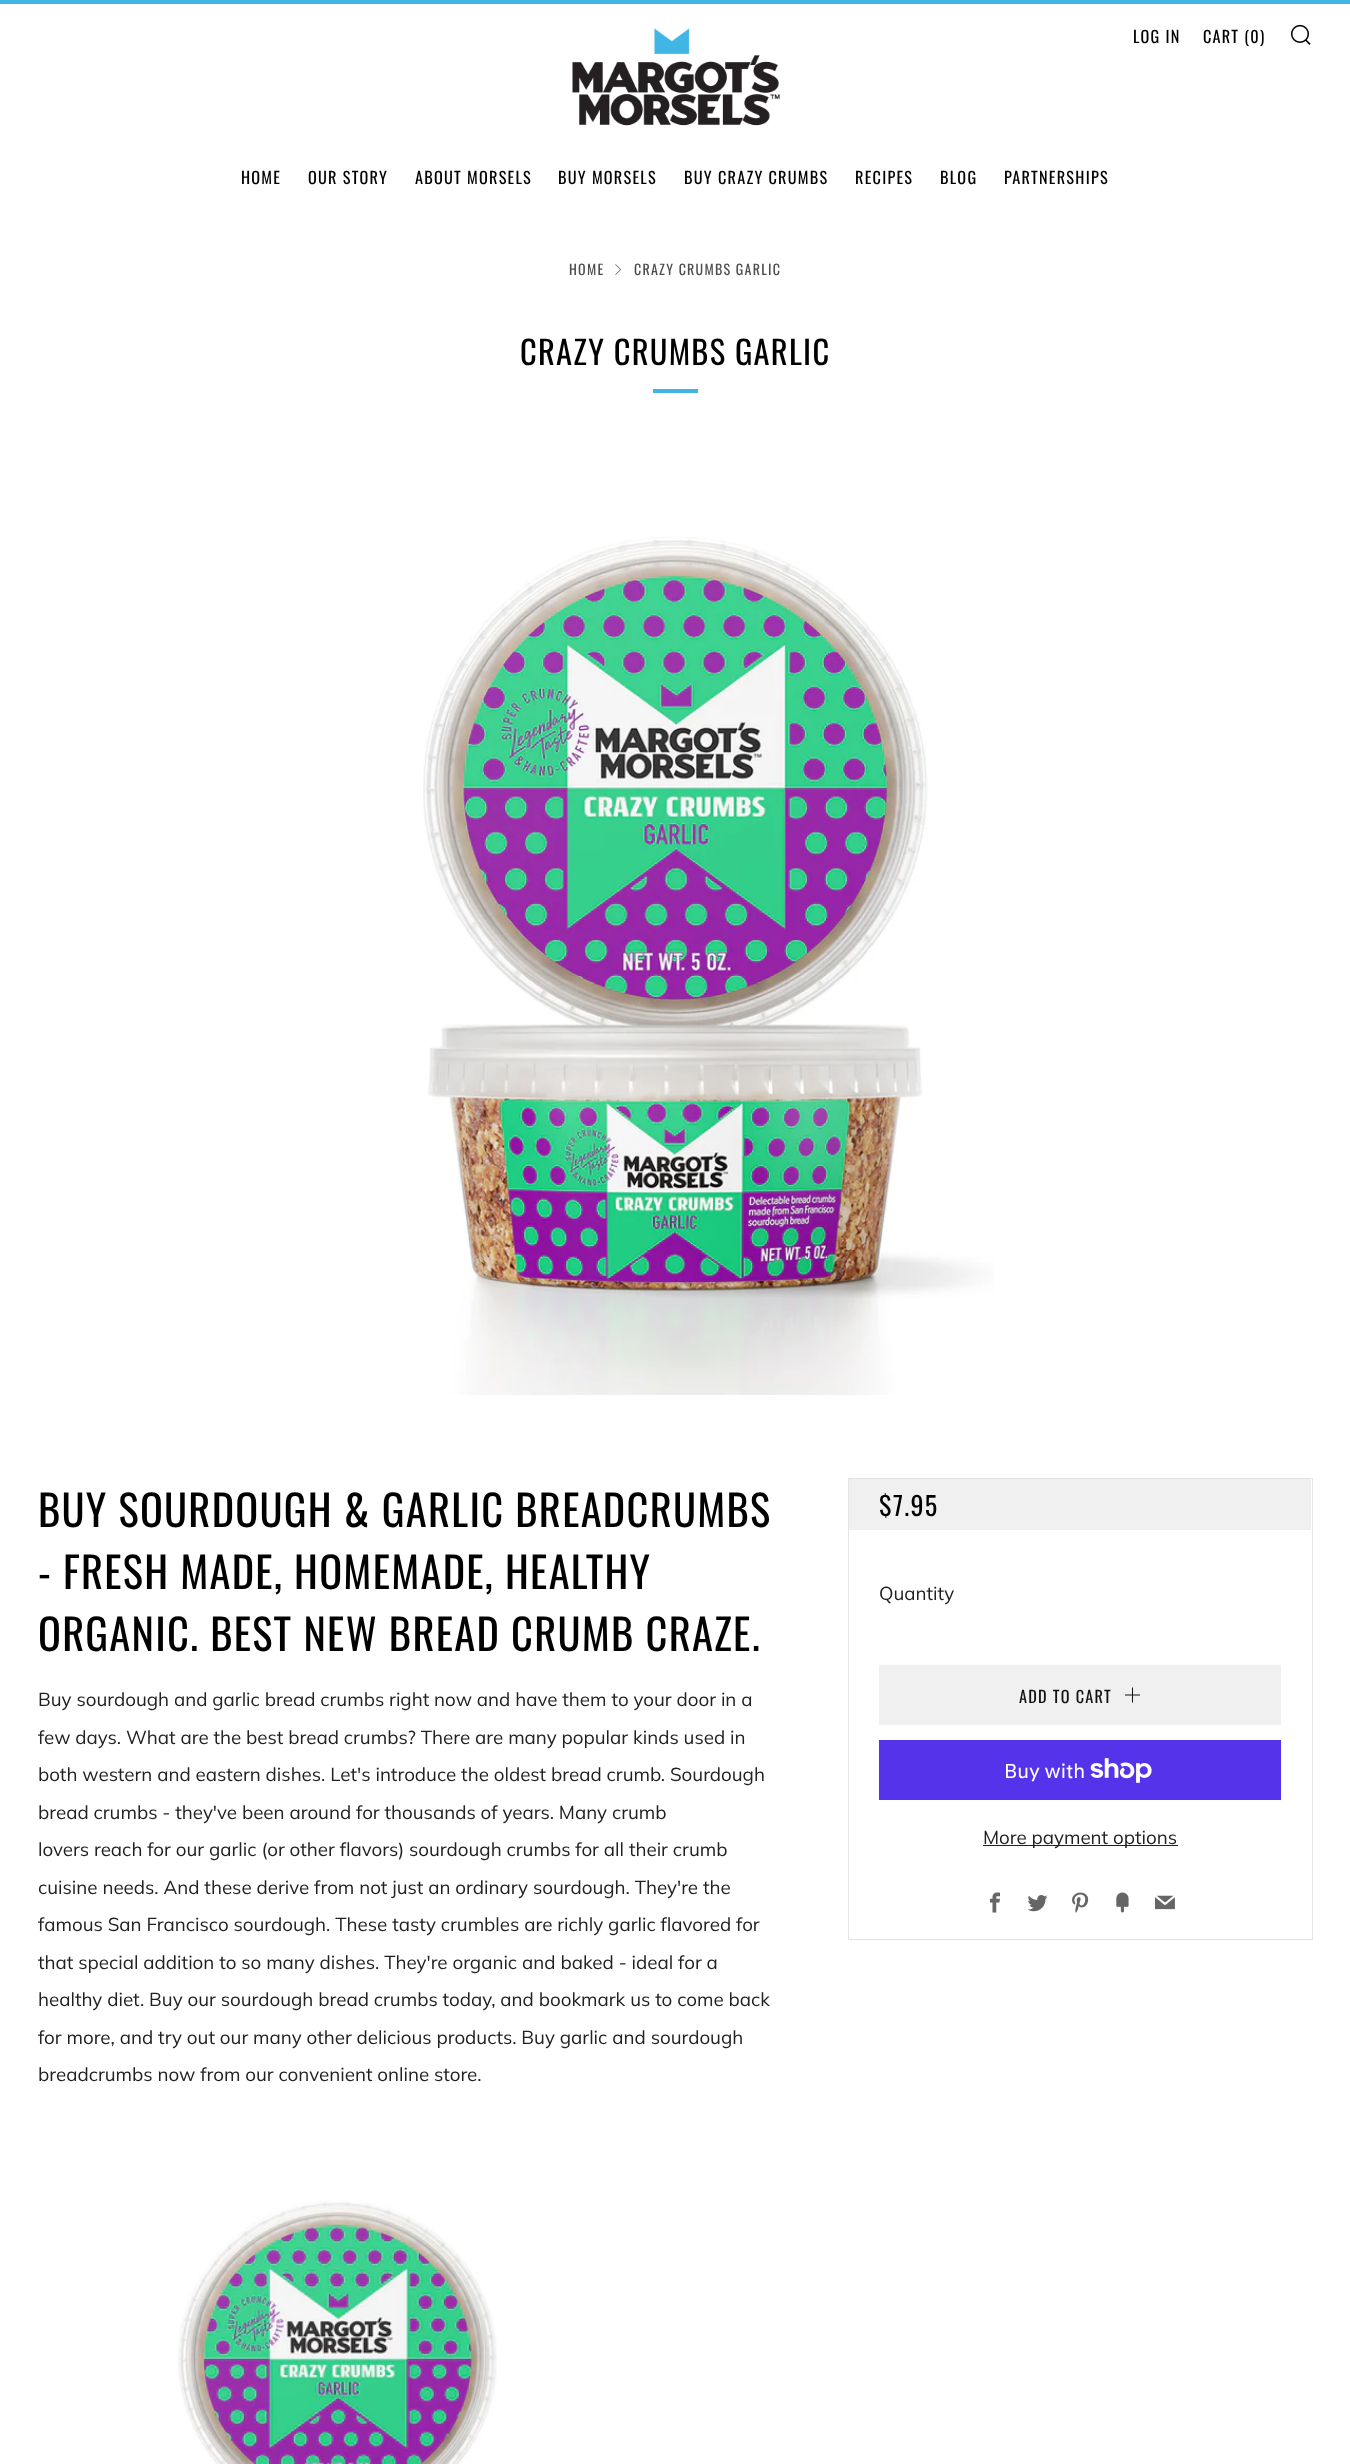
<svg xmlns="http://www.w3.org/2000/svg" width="1350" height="2464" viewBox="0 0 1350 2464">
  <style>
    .t1 { font: 16.25px Oswald; letter-spacing: 1.25px; fill: #000; }
    .t2 { font: 14px Oswald; letter-spacing: 1.25px; fill: #4d4d4d; }
    .t3 { font: 32.5px Oswald; letter-spacing: 1.25px; fill: #000; }
    .t4 { font: 42.5px Oswald; letter-spacing: 1.25px; fill: #000; }
    .t5 { font: 18.75px Muli; fill: #212121; }
    .t6 { font: 26px Oswald; letter-spacing: 1.25px; fill: #000; }
    .t7 { font: 16.25px Oswald; letter-spacing: 1.25px; fill: #111; }
    .t8 { font: 20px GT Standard; fill: #fff; }
  </style>
  <rect width="100%" height="100%" fill="#fff"/>
  <rect x="0" y="0" width="1350" height="4" fill="#40b4e5"/>
  <image x="572" y="28" width="208" height="98" href="images/1.png"/>
  <text x="1133" y="43" class="t1">LOG IN</text>
  <text x="1203" y="43" class="t1">CART (0)</text>
  <image x="1291" y="24" width="20" height="21" href="images/2.png"/>
  <text x="241" y="184" class="t1">HOME</text>
  <text x="308" y="184" class="t1">OUR STORY</text>
  <text x="415" y="184" class="t1">ABOUT MORSELS</text>
  <text x="558" y="184" class="t1">BUY MORSELS</text>
  <text x="684" y="184" class="t1">BUY CRAZY CRUMBS</text>
  <text x="855" y="184" class="t1">RECIPES</text>
  <text x="940" y="184" class="t1">BLOG</text>
  <text x="1004" y="184" class="t1">PARTNERSHIPS</text>
  <text x="569" y="275" class="t2">HOME</text>
  <image x="615" y="264" width="6" height="11" href="images/3.png"/>
  <text x="634" y="275" class="t2">CRAZY CRUMBS GARLIC</text>
  <text x="520" y="365" class="t3">CRAZY CRUMBS GARLIC</text>
  <rect x="653" y="389" width="45" height="4" fill="#40b4e5"/>
  <image x="423" y="537" width="571" height="858" href="images/4.png"/>
  <text x="38" y="1527" class="t4">BUY SOURDOUGH &amp; GARLIC BREADCRUMBS</text>
  <text x="38" y="1589" class="t4">- FRESH MADE, HOMEMADE, HEALTHY</text>
  <text x="38" y="1651" class="t4">ORGANIC. BEST NEW BREAD CRUMB CRAZE.</text>
  <text x="38" y="1706" class="t5">Buy sourdough and garlic bread crumbs right now and have them to your door in a</text>
  <text x="38" y="1744" class="t5">few days. What are the best bread crumbs? There are many popular kinds used in</text>
  <text x="38" y="1781" class="t5">both western and eastern dishes. Let's introduce the oldest bread crumb. Sourdough</text>
  <text x="38" y="1819" class="t5">bread crumbs - they've been around for thousands of years. Many crumb</text>
  <text x="38" y="1856" class="t5">lovers reach for our garlic (or other flavors) sourdough crumbs for all their crumb</text>
  <text x="38" y="1894" class="t5">cuisine needs. And these derive from not just an ordinary sourdough. They're the</text>
  <text x="38" y="1931" class="t5">famous San Francisco sourdough. These tasty crumbles are richly garlic flavored for</text>
  <text x="38" y="1969" class="t5">that special addition to so many dishes. They're organic and baked - ideal for a</text>
  <text x="38" y="2006" class="t5">healthy diet. Buy our sourdough bread crumbs today, and bookmark us to come back</text>
  <text x="38" y="2044" class="t5">for more, and try out our many other delicious products. Buy garlic and sourdough</text>
  <text x="38" y="2081" class="t5">breadcrumbs now from our convenient online store.</text>
  <image x="177" y="2200" width="320" height="264" href="images/5.png"/>
  <rect x="848.5" y="1478.5" width="464" height="461" fill="none" stroke="#e4e4e4"/>
  <rect x="849" y="1479" width="462" height="51" fill="#f0f0f0"/>
  <text x="879" y="1516" class="t6">$7.95</text>
  <text x="879" y="1600" class="t5">Quantity</text>
  <rect x="879" y="1665" width="402" height="60" fill="#f0f0f0"/>
  <text x="1019" y="1703" class="t7">ADD TO CART</text>
  <image x="1125" y="1687" width="15" height="16" href="images/6.png"/>
  <rect x="879" y="1740" width="402" height="60" fill="#5433eb"/>
  <text x="1004" y="1778" class="t8">Buy with</text>
  <image x="1090" y="1758" width="62" height="25" href="images/7.png"/>
  <rect x="983" y="1845" width="195" height="1" fill="#212121"/>
  <text x="983" y="1844" class="t5">More payment options</text>
  <image x="990" y="1892" width="10" height="21" href="images/8.png"/>
  <image x="1027" y="1895" width="21" height="17" href="images/9.png"/>
  <image x="1072" y="1892" width="17" height="21" href="images/10.png"/>
  <image x="1116" y="1892" width="13" height="21" href="images/11.png"/>
  <image x="1155" y="1895" width="20" height="15" href="images/12.png"/>
</svg>
